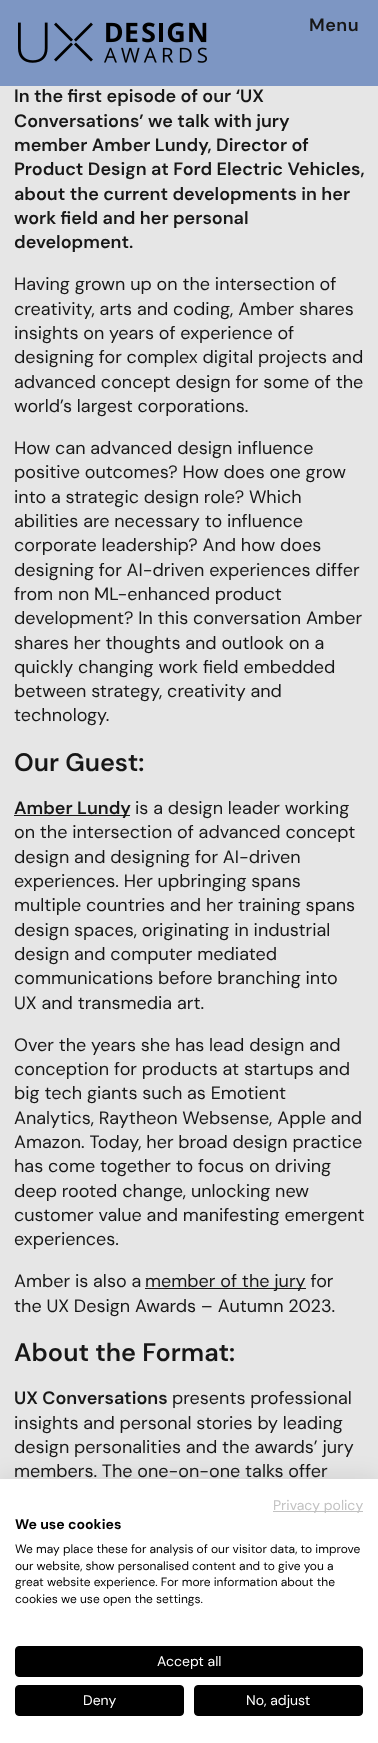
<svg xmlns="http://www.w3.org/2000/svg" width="378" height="1743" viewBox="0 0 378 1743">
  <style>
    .t1 { font: 600 18px DM Sans; letter-spacing: 0.5px; fill: #171717; }
    .t2 { font: 600 18px DM Sans; fill: #171717; }
    .t3 { font: 18px DM Sans; fill: #171717; }
    .t4 { font: 600 25.25px DM Sans; fill: #171717; }
    .t5 { font: 14px DM Sans; fill: #c2c2c2; }
    .t6 { font: bold 14px DM Sans; fill: #000; }
    .t7 { font: 12px DM Sans; fill: #000; }
    .t8 { font: 14px DM Sans; fill: #fff; }
  </style>
  <rect width="100%" height="100%" fill="#e6e6e6"/>
  <rect x="0" y="0" width="378" height="86" fill="#7d96c3"/>
  <image x="18" y="22" width="189" height="41" href="images/1.png"/>
  <text x="309" y="31" class="t1">Menu</text>
  <text x="14" y="102" class="t2">In the first episode of our ‘UX</text>
  <text x="14" y="127" class="t2">Conversations’ we talk with jury</text>
  <text x="14" y="151" class="t2">member Amber Lundy, Director of</text>
  <text x="14" y="175" class="t2">Product Design at Ford Electric Vehicles,</text>
  <text x="14" y="200" class="t2">about the current developments in her</text>
  <text x="14" y="224" class="t2">work field and her personal</text>
  <text x="14" y="248" class="t2">development.</text>
  <text x="14" y="290" class="t3">Having grown up on the intersection of</text>
  <text x="14" y="315" class="t3">creativity, arts and coding, Amber shares</text>
  <text x="14" y="339" class="t3">insights on years of experience of</text>
  <text x="14" y="363" class="t3">designing for complex digital projects and</text>
  <text x="14" y="388" class="t3">advanced concept design for some of the</text>
  <text x="14" y="412" class="t3">world’s largest corporations.</text>
  <text x="14" y="454" class="t3">How can advanced design influence</text>
  <text x="14" y="478" class="t3">positive outcomes? How does one grow</text>
  <text x="14" y="503" class="t3">into a strategic design role? Which</text>
  <text x="14" y="527" class="t3">abilities are necessary to influence</text>
  <text x="14" y="551" class="t3">corporate leadership? And how does</text>
  <text x="14" y="576" class="t3">designing for AI-driven experiences differ</text>
  <text x="14" y="600" class="t3">from non ML-enhanced product</text>
  <text x="14" y="624" class="t3">development? In this conversation Amber</text>
  <text x="14" y="649" class="t3">shares her thoughts and outlook on a</text>
  <text x="14" y="673" class="t3">quickly changing work field embedded</text>
  <text x="14" y="697" class="t3">between strategy, creativity and</text>
  <text x="14" y="721" class="t3">technology.</text>
  <text x="14" y="771" class="t4">Our Guest:</text>
  <rect x="14" y="815" width="116" height="1" fill="#171717"/>
  <text x="14" y="814" class="t2">Amber Lundy</text>
  <text x="135" y="814" class="t3">is a design leader working</text>
  <text x="14" y="838" class="t3">on the intersection of advanced concept</text>
  <text x="14" y="863" class="t3">design and designing for AI-driven</text>
  <text x="14" y="887" class="t3">experiences. Her upbringing spans</text>
  <text x="14" y="911" class="t3">multiple countries and her training spans</text>
  <text x="14" y="936" class="t3">design spaces, originating in industrial</text>
  <text x="14" y="960" class="t3">design and computer mediated</text>
  <text x="14" y="984" class="t3">communications before branching into</text>
  <text x="14" y="1009" class="t3">UX and transmedia art.</text>
  <text x="14" y="1051" class="t3">Over the years she has lead design and</text>
  <text x="14" y="1075" class="t3">conception for products at startups and</text>
  <text x="14" y="1099" class="t3">big tech giants such as Emotient</text>
  <text x="14" y="1124" class="t3">Analytics, Raytheon Websense, Apple and</text>
  <text x="14" y="1148" class="t3">Amazon. Today, her broad design practice</text>
  <text x="14" y="1172" class="t3">has come together to focus on driving</text>
  <text x="14" y="1197" class="t3">deep rooted change, unlocking new</text>
  <text x="14" y="1221" class="t3">customer value and manifesting emergent</text>
  <text x="14" y="1245" class="t3">experiences.</text>
  <text x="14" y="1287" class="t3">Amber is also a</text>
  <rect x="145" y="1288" width="161" height="1" fill="#171717"/>
  <text x="145" y="1287" class="t3">member of the jury for</text>
  <text x="14" y="1312" class="t3">the UX Design Awards – Autumn 2023.</text>
  <text x="14" y="1361" class="t4">About the Format:</text>
  <text x="14" y="1404" class="t2">UX Conversations</text>
  <text x="172" y="1404" class="t3">presents professional</text>
  <text x="14" y="1429" class="t3">insights and personal stories by leading</text>
  <text x="14" y="1453" class="t3">design personalities and the awards’ jury</text>
  <text x="14" y="1477" class="t3">members. The one-on-one talks offer</text>
  <rect x="0" y="1479" width="378" height="264" fill="#0000001a" filter="blur(12px)"/>
  <rect x="0" y="1479" width="378" height="264" fill="#fff"/>
  <rect x="273" y="1511" width="90" height="1" fill="#c2c2c2"/>
  <text x="273" y="1510" class="t5">Privacy policy</text>
  <text x="15" y="1529" class="t6">We use cookies</text>
  <text x="15" y="1553" class="t7">We may place these for analysis of our visitor data, to improve</text>
  <text x="15" y="1570" class="t7">our website, show personalised content and to give you a</text>
  <text x="15" y="1586" class="t7">great website experience. For more information about the</text>
  <text x="15" y="1603" class="t7">cookies we use open the settings.</text>
  <rect x="15.5" y="1646.5" width="347" height="30" rx="3.5" fill="#000" stroke="#000"/>
  <text x="157" y="1666" class="t8">Accept all</text>
  <rect x="15.5" y="1685.5" width="168" height="30" rx="3.5" fill="#000" stroke="#000"/>
  <text x="83" y="1705" class="t8">Deny</text>
  <rect x="194.5" y="1685.5" width="168" height="30" rx="3.5" fill="#000" stroke="#000"/>
  <text x="246" y="1705" class="t8">No, adjust</text>
</svg>
